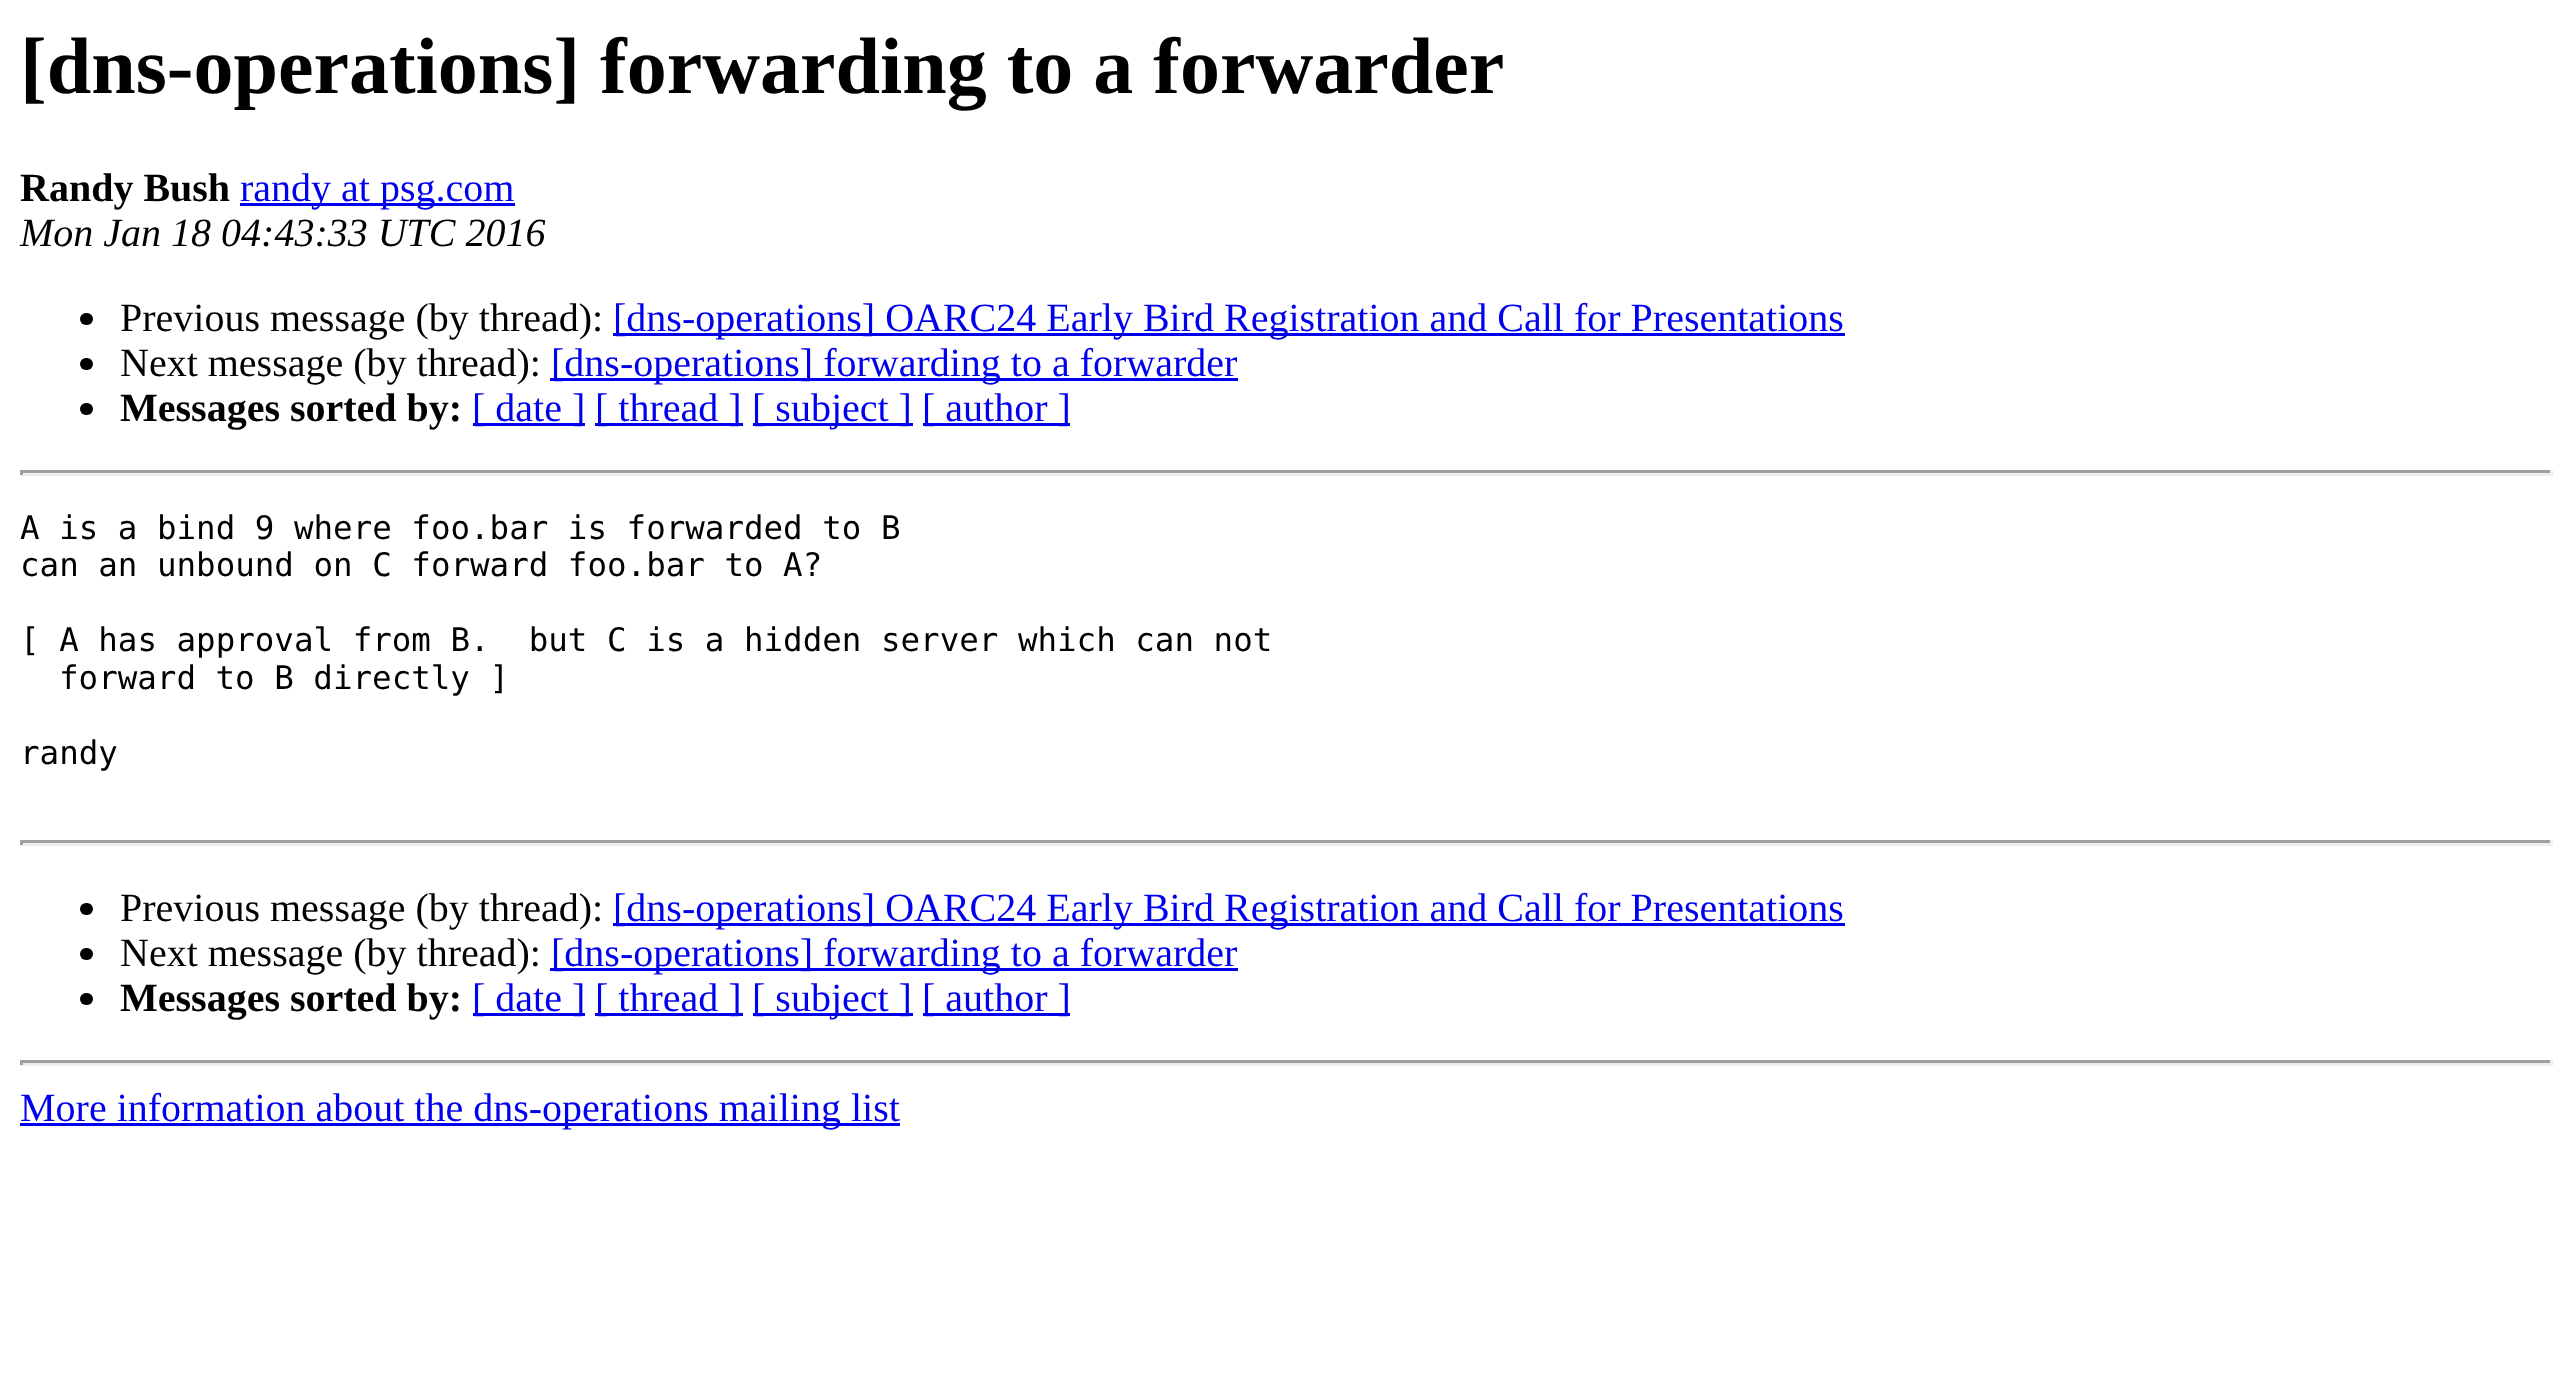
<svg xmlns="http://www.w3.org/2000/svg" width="2571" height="1383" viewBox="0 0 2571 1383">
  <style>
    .t1 { font: bold 80px Liberation Serif; fill: #000; }
    .t2 { font: bold 40px Liberation Serif; fill: #000; }
    .t3 { font: 40px Liberation Serif; fill: #00e; }
    .t4 { font: italic 40px Liberation Serif; fill: #000; }
    .t5 { font: 40px Liberation Serif; fill: #000; }
    .t6 { font: 32.5px DejaVu Sans Mono; fill: #000; }
  </style>
  <rect width="100%" height="100%" fill="#fff"/>
  <text x="20" y="93" class="t1">[dns-operations] forwarding to a forwarder</text>
  <text x="20" y="201" class="t2">Randy Bush</text>
  <rect x="240" y="203" width="275" height="3" fill="#00e"/>
  <text x="240" y="201" class="t3">randy at psg.com</text>
  <text x="20" y="246" class="t4">Mon Jan 18 04:43:33 UTC 2016</text>
  <rect x="80" y="313" width="13" height="12" rx="6" fill="#000"/>
  <text x="120" y="331" class="t5">Previous message (by thread):</text>
  <rect x="613" y="333" width="1232" height="3" fill="#00e"/>
  <text x="613" y="331" class="t3">[dns-operations] OARC24 Early Bird Registration and Call for Presentations</text>
  <rect x="80" y="358" width="13" height="12" rx="6" fill="#000"/>
  <text x="120" y="376" class="t5">Next message (by thread):</text>
  <rect x="550" y="378" width="688" height="3" fill="#00e"/>
  <text x="551" y="376" class="t3">[dns-operations] forwarding to a forwarder</text>
  <rect x="80" y="403" width="13" height="12" rx="6" fill="#000"/>
  <text x="120" y="421" class="t2">Messages sorted by:</text>
  <rect x="473" y="423" width="112" height="3" fill="#00e"/>
  <text x="472" y="421" class="t3">[ date ]</text>
  <rect x="595" y="423" width="148" height="3" fill="#00e"/>
  <text x="595" y="421" class="t3">[ thread ]</text>
  <rect x="753" y="423" width="160" height="3" fill="#00e"/>
  <text x="752" y="421" class="t3">[ subject ]</text>
  <rect x="923" y="423" width="147" height="3" fill="#00e"/>
  <text x="922" y="421" class="t3">[ author ]</text>
  <rect x="20" y="470" width="2533" height="3" fill="#9f9f9f"/>
  <rect x="2550" y="470" width="3" height="5" fill="#eee"/>
  <rect x="20" y="473" width="2533" height="3" fill="#eee"/>
  <rect x="20" y="470" width="3" height="5" fill="#9f9f9f"/>
  <text x="20" y="539" class="t6">A is a bind 9 where foo.bar is forwarded to B</text>
  <text x="20" y="576" class="t6">can an unbound on C forward foo.bar to A?</text>
  <text x="20" y="651" class="t6" xml:space="preserve">[ A has approval from B.  but C is a hidden server which can not</text>
  <text x="59" y="689" class="t6">forward to B directly ]</text>
  <text x="20" y="764" class="t6">randy</text>
  <rect x="20" y="840" width="2533" height="3" fill="#9f9f9f"/>
  <rect x="2550" y="840" width="3" height="5" fill="#eee"/>
  <rect x="20" y="843" width="2533" height="3" fill="#eee"/>
  <rect x="20" y="840" width="3" height="5" fill="#9f9f9f"/>
  <rect x="80" y="903" width="13" height="12" rx="6" fill="#000"/>
  <text x="120" y="921" class="t5">Previous message (by thread):</text>
  <rect x="613" y="923" width="1232" height="3" fill="#00e"/>
  <text x="613" y="921" class="t3">[dns-operations] OARC24 Early Bird Registration and Call for Presentations</text>
  <rect x="80" y="948" width="13" height="12" rx="6" fill="#000"/>
  <text x="120" y="966" class="t5">Next message (by thread):</text>
  <rect x="550" y="968" width="688" height="3" fill="#00e"/>
  <text x="551" y="966" class="t3">[dns-operations] forwarding to a forwarder</text>
  <rect x="80" y="993" width="13" height="12" rx="6" fill="#000"/>
  <text x="120" y="1011" class="t2">Messages sorted by:</text>
  <rect x="473" y="1013" width="112" height="3" fill="#00e"/>
  <text x="472" y="1011" class="t3">[ date ]</text>
  <rect x="595" y="1013" width="148" height="3" fill="#00e"/>
  <text x="595" y="1011" class="t3">[ thread ]</text>
  <rect x="753" y="1013" width="160" height="3" fill="#00e"/>
  <text x="752" y="1011" class="t3">[ subject ]</text>
  <rect x="923" y="1013" width="147" height="3" fill="#00e"/>
  <text x="922" y="1011" class="t3">[ author ]</text>
  <rect x="20" y="1060" width="2533" height="3" fill="#9f9f9f"/>
  <rect x="2550" y="1060" width="3" height="5" fill="#eee"/>
  <rect x="20" y="1063" width="2533" height="3" fill="#eee"/>
  <rect x="20" y="1060" width="3" height="5" fill="#9f9f9f"/>
  <rect x="20" y="1123" width="880" height="3" fill="#00e"/>
  <text x="20" y="1121" class="t3">More information about the dns-operations mailing list</text>
</svg>
